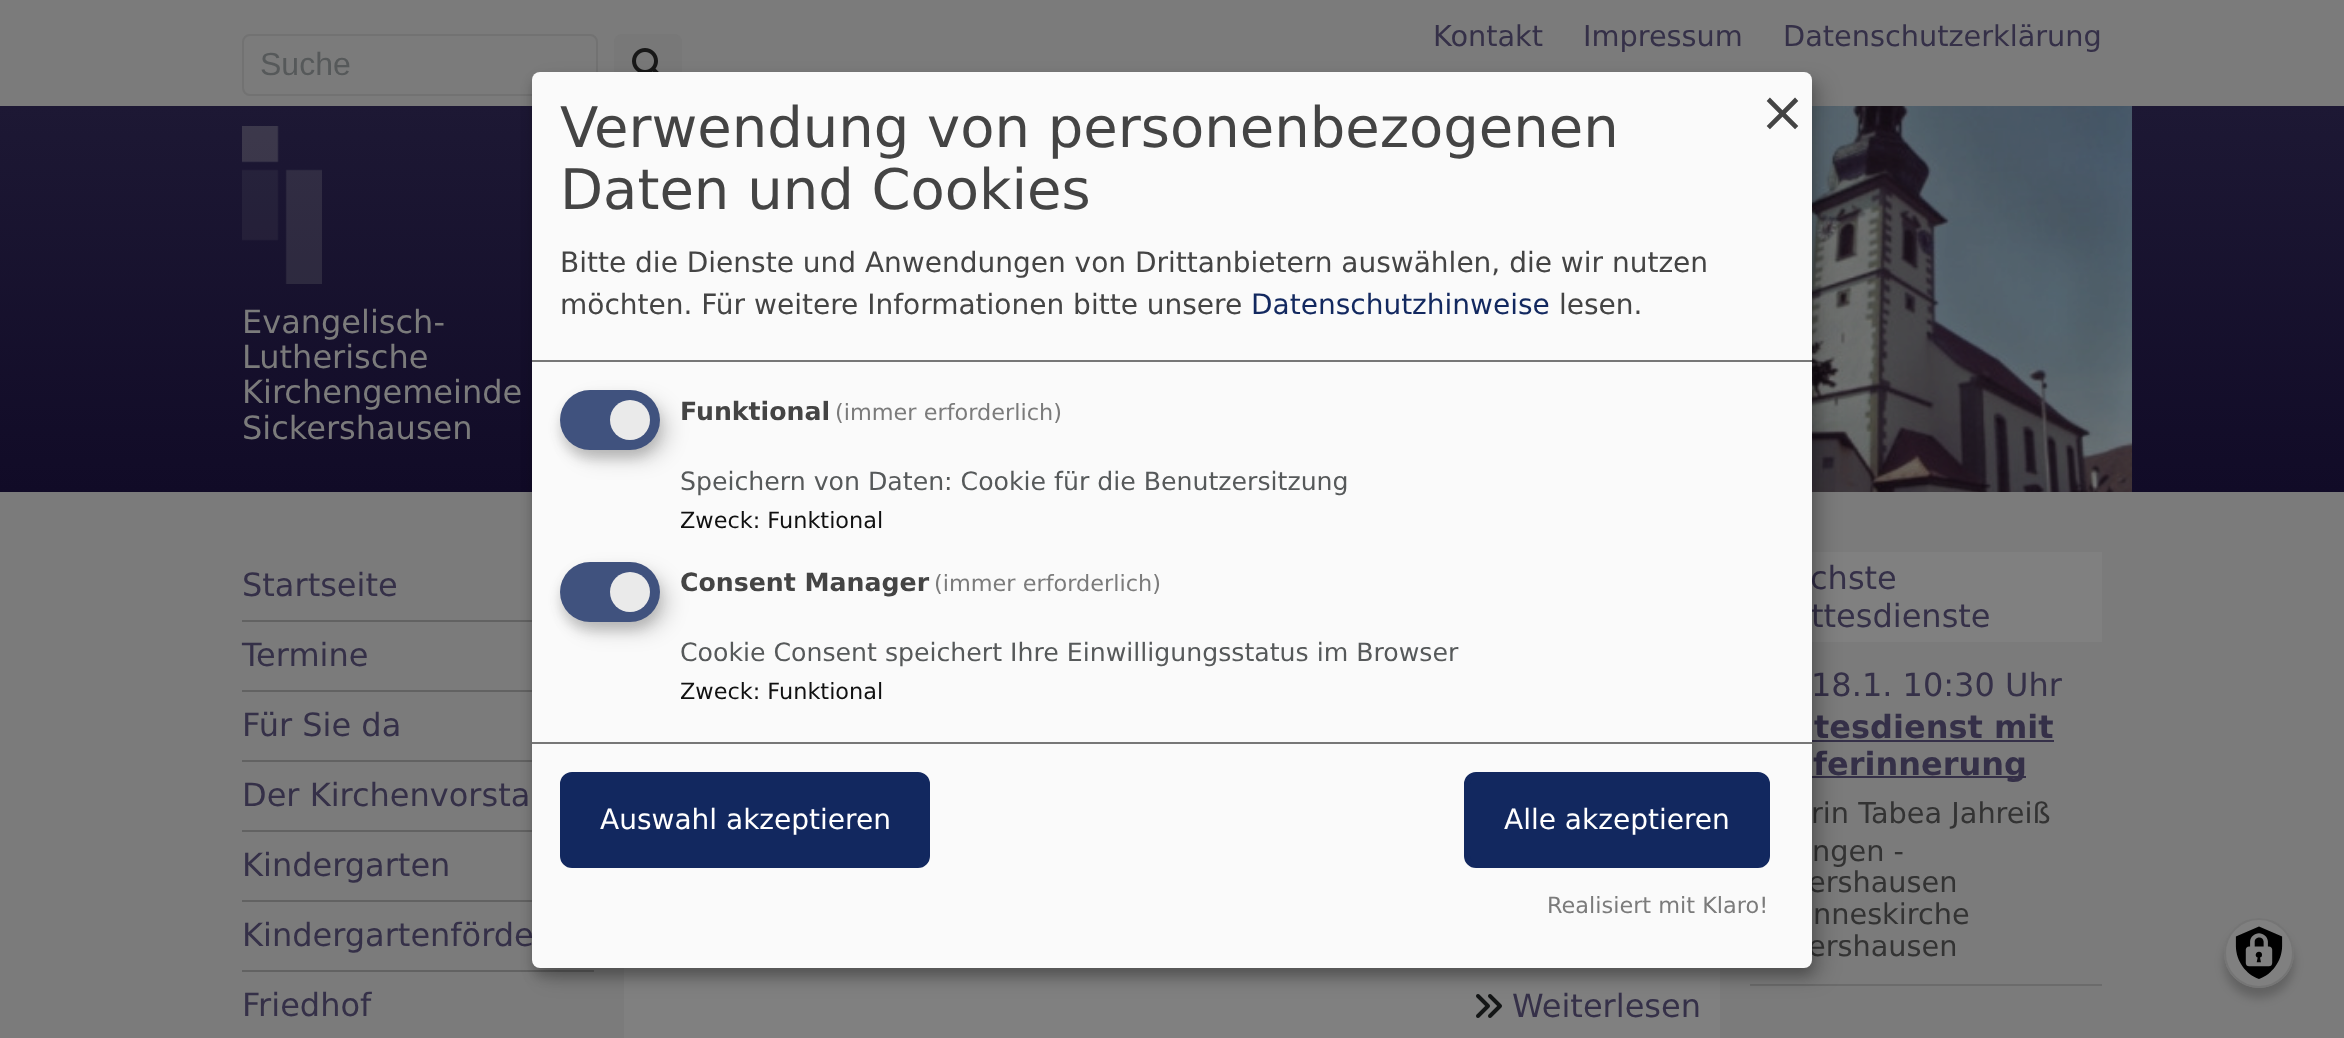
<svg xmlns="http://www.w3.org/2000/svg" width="2344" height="1038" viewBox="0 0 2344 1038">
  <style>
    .t1 { font: 28.75px DejaVu Sans; fill: #353048; }
    .t2 { font: 32px Liberation Sans; fill: #56595a; }
    .t3 { font: 32px DejaVu Sans; fill: #7b7b7b; }
    .t4 { font: 32px DejaVu Sans; fill: #353048; }
    .t5 { font: bold 32px DejaVu Sans; fill: #353048; }
    .t6 { font: 28.75px DejaVu Sans; fill: #333; }
    .t7 { font: 56px DejaVu Sans; fill: #444; }
    .t8 { font: 28px DejaVu Sans; fill: #444; }
    .t9 { font: 28px DejaVu Sans; fill: #12285f; }
    .t10 { font: bold 25.2px DejaVu Sans; fill: #444; }
    .t11 { font: 22.4px DejaVu Sans; fill: #7b7b7b; }
    .t12 { font: 25.2px DejaVu Sans; fill: #56595a; }
    .t13 { font: 22.4px DejaVu Sans; fill: #111; }
    .t14 { font: 28px DejaVu Sans; fill: #fff; }
  </style>
  <defs>
    <linearGradient id="g1" gradientUnits="userSpaceOnUse" x1="1172" y1="106" x2="1172" y2="492"><stop offset="0" stop-color="#1d1834"/><stop offset="1" stop-color="#110b27"/></linearGradient>
  </defs>
  <rect width="100%" height="100%" fill="#7b7b7b"/>
  <text x="1433" y="46" class="t1">Kontakt</text>
  <text x="1583" y="46" class="t1">Impressum</text>
  <text x="1783" y="46" class="t1">Datenschutzerklärung</text>
  <rect x="243" y="35" width="354" height="60" rx="7" fill="none" stroke="#727272" stroke-width="2"/>
  <text x="260" y="75" class="t2">Suche</text>
  <rect x="614" y="34" width="68" height="62" rx="8" fill="#787878"/>
  <image x="632" y="48" width="27" height="24" href="images/1.png"/>
  <rect x="0" y="106" width="2344" height="386" fill="url(#g1)"/>
  <image x="242" y="126" width="80" height="158" href="images/2.png"/>
  <text x="242" y="333" class="t3">Evangelisch-</text>
  <text x="242" y="368" class="t3">Lutherische</text>
  <text x="242" y="403" class="t3">Kirchengemeinde</text>
  <text x="242" y="439" class="t3">Sickershausen</text>
  <image x="1812" y="106" width="320" height="386" href="images/3.png"/>
  <rect x="242" y="620" width="290" height="2" fill="#626262"/>
  <text x="242" y="596" class="t4">Startseite</text>
  <rect x="242" y="690" width="290" height="2" fill="#626262"/>
  <text x="242" y="666" class="t4">Termine</text>
  <rect x="242" y="760" width="290" height="2" fill="#626262"/>
  <text x="242" y="736" class="t4">Für Sie da</text>
  <rect x="242" y="830" width="290" height="2" fill="#626262"/>
  <text x="242" y="806" class="t4">Der Kirchenvorsta</text>
  <rect x="242" y="900" width="290" height="2" fill="#626262"/>
  <text x="242" y="876" class="t4">Kindergarten</text>
  <rect x="242" y="970" width="352" height="2" fill="#626262"/>
  <text x="242" y="946" class="t4">Kindergartenförde</text>
  <text x="242" y="1016" class="t4">Friedhof</text>
  <rect x="624" y="968" width="1096" height="70" fill="#808080"/>
  <image x="1476" y="994" width="26" height="24" href="images/4.png"/>
  <text x="1512" y="1017" class="t4">Weiterlesen</text>
  <rect x="1812" y="552" width="290" height="90" fill="#808080"/>
  <text x="1810" y="589" class="t4">chste</text>
  <text x="1811" y="627" class="t4">ttesdienste</text>
  <rect x="1750" y="984" width="352" height="2" fill="#6b6b6b"/>
  <text x="1811" y="696" class="t4">18.1. 10:30 Uhr</text>
  <text x="1814" y="738" class="t5">tesdienst mit</text>
  <rect x="1812" y="740" width="242" height="2" fill="#353048"/>
  <rect x="1812" y="776" width="214" height="2" fill="#353048"/>
  <text x="1813" y="775" class="t5">ferinnerung</text>
  <text x="1811" y="823" class="t6">rin Tabea Jahreiß</text>
  <text x="1812" y="861" class="t6">ngen -</text>
  <text x="1808" y="892" class="t6">ershausen</text>
  <text x="1813" y="924" class="t6">nneskirche</text>
  <text x="1808" y="956" class="t6">ershausen</text>
  <rect x="542" y="82" width="1280" height="896" rx="8" fill="#00000030" filter="blur(10px)"/>
  <rect x="532" y="80" width="1280" height="896" rx="8" fill="#00000033" filter="blur(6px)"/>
  <rect x="532" y="72" width="1280" height="896" rx="8" fill="#fafafa"/>
  <rect x="532" y="360" width="1280" height="2" fill="#777"/>
  <text x="560" y="147" class="t7">Verwendung von personenbezogenen</text>
  <text x="560" y="209" class="t7">Daten und Cookies</text>
  <text x="560" y="272" class="t8">Bitte die Dienste und Anwendungen von Drittanbietern auswählen, die wir nutzen</text>
  <text x="560" y="314" class="t8">möchten. Für weitere Informationen bitte unsere</text>
  <text x="1251" y="314" class="t9">Datenschutzhinweise</text>
  <text x="1559" y="314" class="t8">lesen.</text>
  <text x="1759" y="131" class="t7">×</text>
  <rect x="570" y="400" width="100" height="60" rx="30" fill="#00000026" filter="blur(10px)"/>
  <rect x="560" y="398" width="100" height="60" rx="30" fill="#32323233" filter="blur(6px)"/>
  <rect x="560" y="390" width="100" height="60" rx="30" fill="#40527e"/>
  <circle cx="630" cy="420" r="20" fill="#eaeaea"/>
  <text x="680" y="420" class="t10">Funktional</text>
  <text x="835" y="420" class="t11">(immer erforderlich)</text>
  <text x="680" y="490" class="t12">Speichern von Daten: Cookie für die Benutzersitzung</text>
  <text x="680" y="528" class="t13">Zweck: Funktional</text>
  <rect x="570" y="572" width="100" height="60" rx="30" fill="#00000026" filter="blur(10px)"/>
  <rect x="560" y="570" width="100" height="60" rx="30" fill="#32323233" filter="blur(6px)"/>
  <rect x="560" y="562" width="100" height="60" rx="30" fill="#40527e"/>
  <circle cx="630" cy="592" r="20" fill="#eaeaea"/>
  <text x="680" y="591" class="t10">Consent Manager</text>
  <text x="934" y="591" class="t11">(immer erforderlich)</text>
  <text x="680" y="661" class="t12">Cookie Consent speichert Ihre Einwilligungsstatus im Browser</text>
  <text x="680" y="699" class="t13">Zweck: Funktional</text>
  <rect x="532" y="742" width="1280" height="2" fill="#777"/>
  <rect x="563" y="775" width="364" height="90" rx="9" fill="#12285f" stroke="#12285f" stroke-width="6"/>
  <text x="600" y="829" class="t14">Auswahl akzeptieren</text>
  <rect x="1467" y="775" width="300" height="90" rx="9" fill="#12285f" stroke="#12285f" stroke-width="6"/>
  <text x="1504" y="829" class="t14">Alle akzeptieren</text>
  <text x="1547" y="913" class="t11">Realisiert mit Klaro!</text>
  <rect x="2224" y="928" width="70" height="70" rx="35" fill="#00000033" filter="blur(5px)"/>
  <circle cx="2259" cy="953" r="35" fill="#808080"/>
  <image x="2235" y="926" width="48" height="53" href="images/5.png"/>
  <circle cx="2259" cy="953" r="34" fill="none" stroke="#757575" stroke-width="2"/>
</svg>
